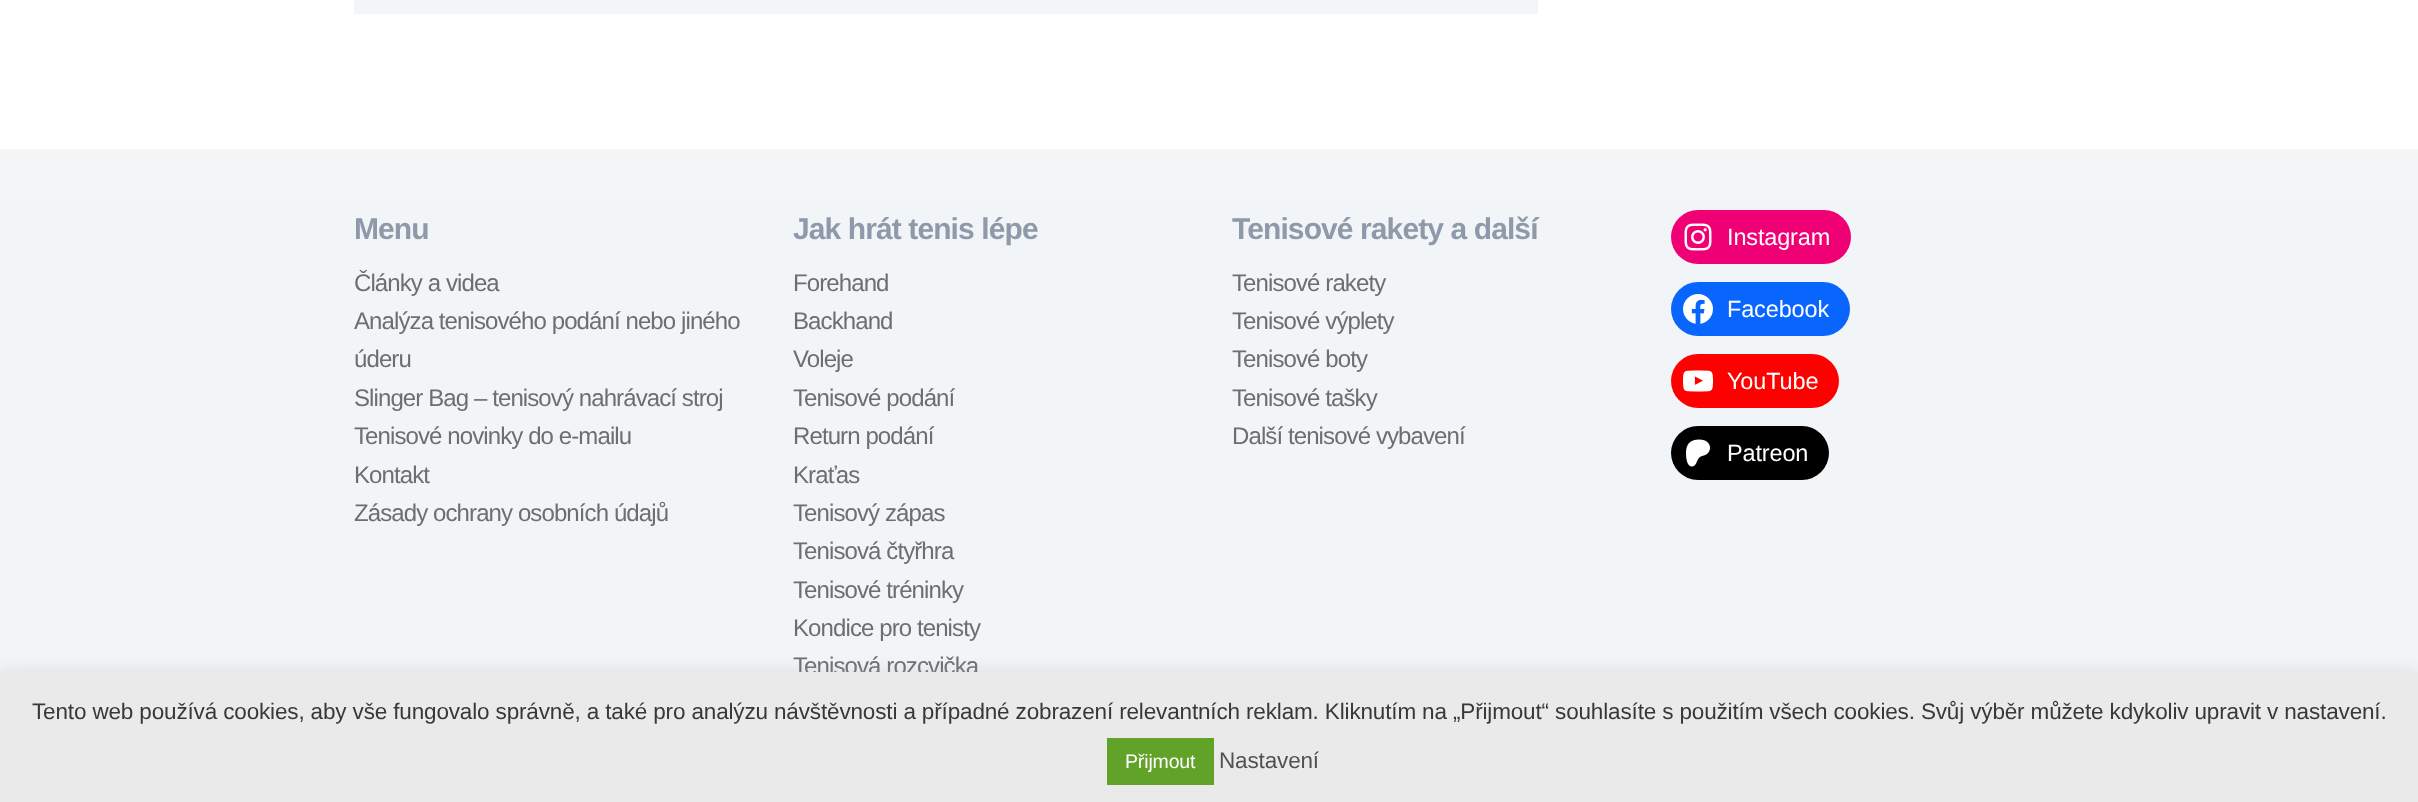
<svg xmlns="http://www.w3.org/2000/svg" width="2418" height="802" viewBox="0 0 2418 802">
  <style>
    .t1 { font: bold 30px Liberation Sans; letter-spacing: -0.9px; fill: #8e99a9; }
    .t2 { font: 24px Liberation Sans; letter-spacing: -0.9px; fill: #6e6e6e; }
    .t3 { font: 23.5px Liberation Sans; letter-spacing: -0.15px; fill: #fff; }
    .t4 { font: 22.5px Liberation Sans; letter-spacing: -0.15px; fill: #383838; }
    .t5 { font: 19.5px Liberation Sans; letter-spacing: -0.15px; fill: #fff; }
    .t6 { font: 22.5px Liberation Sans; letter-spacing: -0.15px; fill: #515151; }
  </style>
  <rect width="100%" height="100%" fill="#fff"/>
  <rect x="354" y="0" width="1184" height="14" fill="#f4f5f7"/>
  <rect x="0" y="198" width="2418" height="474" fill="#f2f5f7"/>
  <rect x="0" y="149" width="2418" height="49" fill="#f4f5f7"/>
  <text x="354" y="239" class="t1">Menu</text>
  <text x="354" y="291" class="t2">Články a videa</text>
  <text x="354" y="329" class="t2">Analýza tenisového podání nebo jiného</text>
  <text x="354" y="367" class="t2">úderu</text>
  <text x="354" y="406" class="t2">Slinger Bag – tenisový nahrávací stroj</text>
  <text x="354" y="444" class="t2">Tenisové novinky do e-mailu</text>
  <text x="354" y="483" class="t2">Kontakt</text>
  <text x="354" y="521" class="t2">Zásady ochrany osobních údajů</text>
  <text x="793" y="239" class="t1">Jak hrát tenis lépe</text>
  <text x="793" y="291" class="t2">Forehand</text>
  <text x="793" y="329" class="t2">Backhand</text>
  <text x="793" y="367" class="t2">Voleje</text>
  <text x="793" y="406" class="t2">Tenisové podání</text>
  <text x="793" y="444" class="t2">Return podání</text>
  <text x="793" y="483" class="t2">Kraťas</text>
  <text x="793" y="521" class="t2">Tenisový zápas</text>
  <text x="793" y="559" class="t2">Tenisová čtyřhra</text>
  <text x="793" y="598" class="t2">Tenisové tréninky</text>
  <text x="793" y="636" class="t2">Kondice pro tenisty</text>
  <text x="793" y="674" class="t2">Tenisová rozcvička</text>
  <text x="1232" y="239" class="t1">Tenisové rakety a další</text>
  <text x="1232" y="291" class="t2">Tenisové rakety</text>
  <text x="1232" y="329" class="t2">Tenisové výplety</text>
  <text x="1232" y="367" class="t2">Tenisové boty</text>
  <text x="1232" y="406" class="t2">Tenisové tašky</text>
  <text x="1232" y="444" class="t2">Další tenisové vybavení</text>
  <rect x="1671" y="210" width="180" height="54" rx="27" fill="#f00075"/>
  <image x="1684" y="223" width="28" height="28" href="images/1.png"/>
  <text x="1727" y="245" class="t3">Instagram</text>
  <rect x="1671" y="282" width="179" height="54" rx="27" fill="#0866ff"/>
  <image x="1683" y="294" width="30" height="30" href="images/2.png"/>
  <text x="1727" y="317" class="t3">Facebook</text>
  <rect x="1671" y="354" width="168" height="54" rx="27" fill="#f00"/>
  <image x="1683" y="370" width="30" height="22" href="images/3.png"/>
  <text x="1727" y="389" class="t3">YouTube</text>
  <rect x="1671" y="426" width="158" height="54" rx="27" fill="#000"/>
  <image x="1686" y="439" width="24" height="28" href="images/4.png"/>
  <text x="1727" y="461" class="t3">Patreon</text>
  <rect x="0" y="671" width="2418" height="130" fill="#acabab4d" filter="blur(7.5px)"/>
  <rect x="0" y="672" width="2418" height="130" fill="#eaeaea"/>
  <text x="32" y="719" class="t4">Tento web používá cookies, aby vše fungovalo správně, a také pro analýzu návštěvnosti a případné zobrazení relevantních reklam. Kliknutím na „Přijmout“ souhlasíte s použitím všech cookies. Svůj výběr můžete kdykoliv upravit v nastavení.</text>
  <rect x="1107" y="738" width="107" height="47" fill="#61a229"/>
  <text x="1125" y="768" class="t5">Přijmout</text>
  <text x="1219" y="768" class="t6">Nastavení</text>
</svg>
